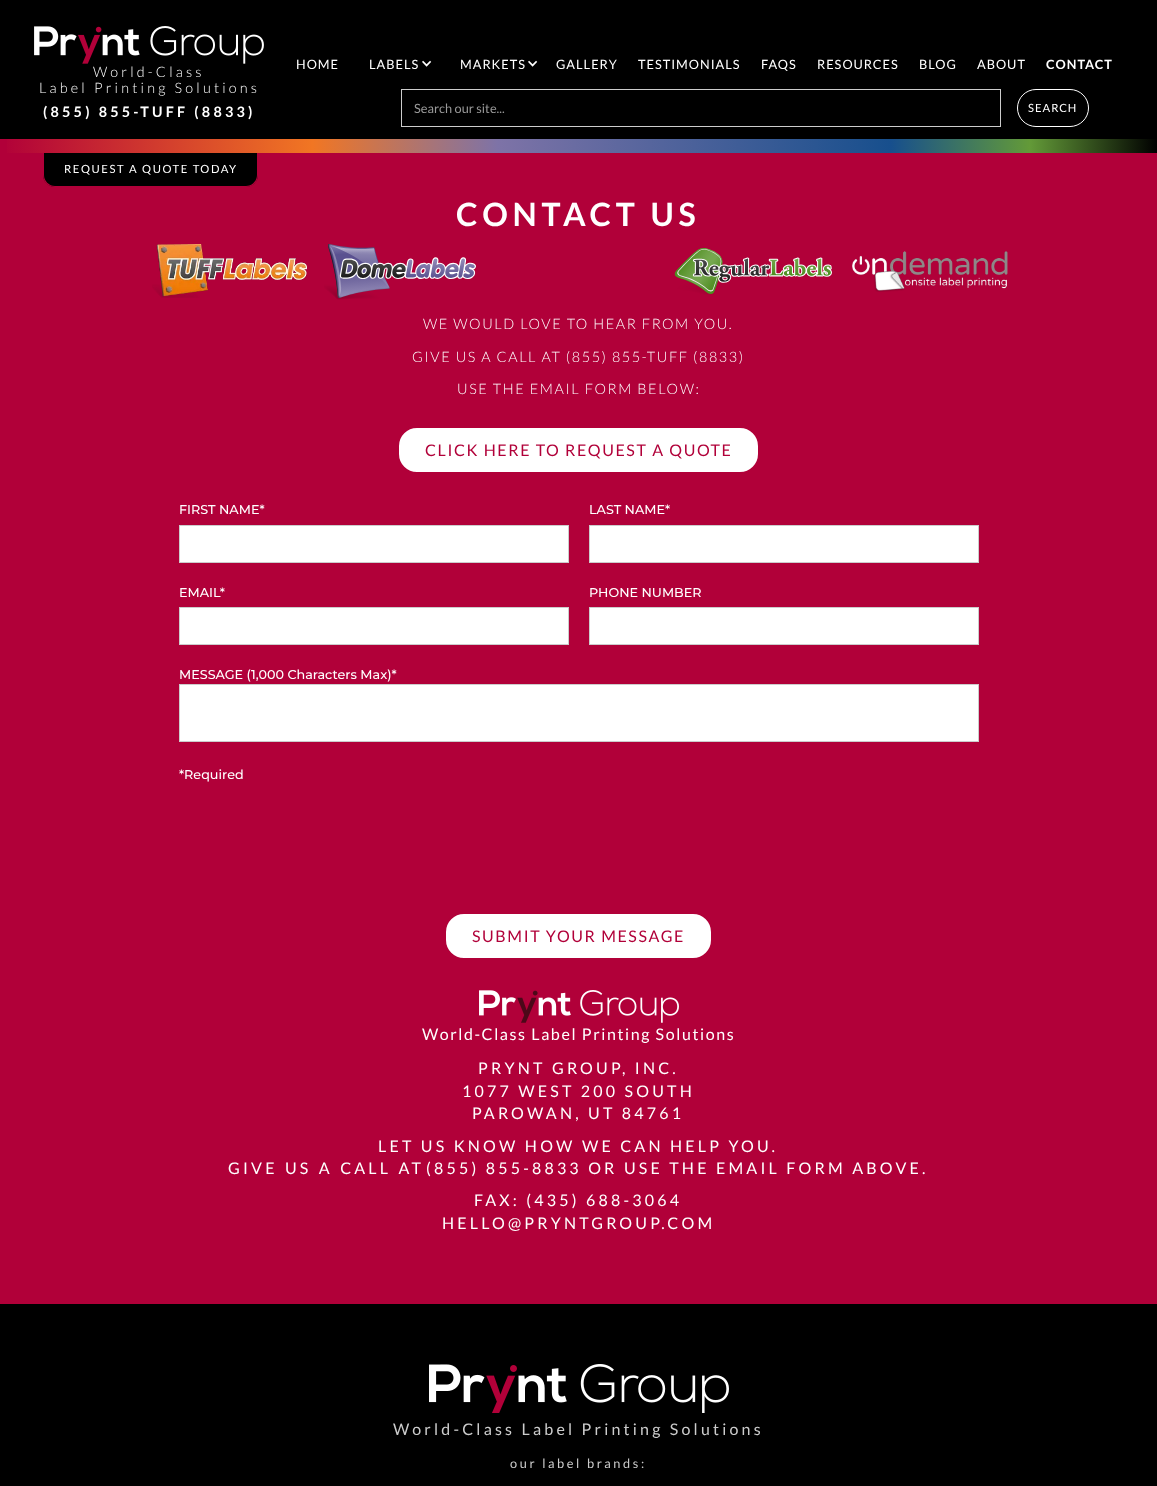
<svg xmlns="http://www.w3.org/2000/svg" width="1157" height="1486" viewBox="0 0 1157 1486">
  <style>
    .t1 { font: 300 14.4px Lato; letter-spacing: 3.2px; fill: #fff; }
    .t2 { font: bold 14.4px Lato; letter-spacing: 3.2px; fill: #fff; }
    .t3 { font: 12.75px Lato; letter-spacing: 1px; fill: #fff; }
    .t4 { font: bold 12.75px Lato; letter-spacing: 1px; fill: #fff; }
    .t5 { font: 12.75px Lato; fill: #999; }
    .t6 { font: 11.25px Lato; letter-spacing: 1px; fill: #fff; }
    .t7 { font: 11.25px Lato; letter-spacing: 1.6px; fill: #fff; }
    .t8 { font: bold 32px Lato; letter-spacing: 4.75px; fill: #fff; }
    .t9 { font: 300 14.4px Lato; letter-spacing: 1.6px; fill: #fff; }
    .t10 { font: 16px Lato; letter-spacing: 1.6px; fill: #b10039; }
    .t11 { font: 500 12.75px Montserrat; fill: #fff; }
    .t12 { font: 16px Lato; letter-spacing: 1.6px; fill: #fff; }
    .t13 { font: 16px Lato; letter-spacing: 3.2px; fill: #fff; }
    .t14 { font: 16px Lato; letter-spacing: 3.2px; fill: #ccc; }
    .t15 { font: 12.75px Lato; letter-spacing: 2.6px; fill: #ccc; }
  </style>
  <defs>
    <linearGradient id="g1" gradientUnits="userSpaceOnUse" x1="0" y1="146" x2="1157" y2="146"><stop offset="0" stop-color="#b10039"/><stop offset="0.27" stop-color="#f17623"/><stop offset="0.43" stop-color="#7e73a7"/><stop offset="0.77" stop-color="#174f8d"/><stop offset="0.89" stop-color="#639a38"/><stop offset="1" stop-color="#000"/><stop offset="1" stop-color="#fff"/></linearGradient>
  </defs>
  <rect width="100%" height="100%" fill="#b10039"/>
  <rect x="0" y="0" width="1157" height="139" fill="#000"/>
  <image x="34" y="26" width="230" height="38" href="images/1.png"/>
  <text x="93" y="77" class="t1">World-Class</text>
  <text x="39" y="93" class="t1">Label Printing Solutions</text>
  <text x="43" y="117" class="t2">(855) 855-TUFF (8833)</text>
  <text x="296" y="69" class="t3">HOME</text>
  <text x="369" y="69" class="t3">LABELS</text>
  <image x="422" y="60" width="10" height="7" href="images/2.png"/>
  <text x="460" y="69" class="t3">MARKETS</text>
  <image x="528" y="60" width="10" height="7" href="images/2.png"/>
  <text x="556" y="69" class="t3">GALLERY</text>
  <text x="638" y="69" class="t3">TESTIMONIALS</text>
  <text x="761" y="69" class="t3">FAQS</text>
  <text x="817" y="69" class="t3">RESOURCES</text>
  <text x="919" y="69" class="t3">BLOG</text>
  <text x="977" y="69" class="t3">ABOUT</text>
  <text x="1046" y="69" class="t4">CONTACT</text>
  <rect x="401.5" y="89.5" width="599" height="37" fill="none" stroke="#ccc"/>
  <text x="414" y="113" class="t5">Search our site...</text>
  <rect x="1017.5" y="89.5" width="71" height="37" rx="18.5" fill="none" stroke="#fff"/>
  <text x="1028" y="112" class="t6">SEARCH</text>
  <path d="M43 152H258V175C258 181.5 252.5 187 246 187H55C48.5 187 43 181.5 43 175Z" fill="#000"/>
  <path d="M43 152H258V175C258 182 253 187 246 187H55C48 187 43 182 43 175ZM44 152H257V175C257 181 252 186 246 186H55C49 186 44 181 44 175Z" fill="#b10039" fill-rule="evenodd"/>
  <rect x="7" y="139" width="1150" height="14" fill="url(#g1)"/>
  <text x="64" y="173" class="t7">REQUEST A QUOTE TODAY</text>
  <text x="456" y="226" class="t8">CONTACT US</text>
  <image x="152" y="244" width="155" height="54" href="images/3.png"/>
  <image x="324" y="244" width="152" height="56" href="images/4.png"/>
  <image x="674" y="248" width="158" height="47" href="images/5.png"/>
  <image x="852" y="251" width="156" height="41" href="images/6.png"/>
  <text x="423" y="329" class="t9">WE WOULD LOVE TO HEAR FROM YOU.</text>
  <text x="412" y="362" class="t9">GIVE US A CALL AT (855) 855-TUFF (8833)</text>
  <text x="457" y="394" class="t9">USE THE EMAIL FORM BELOW:</text>
  <rect x="398" y="427" width="361" height="46" rx="19" fill="#fff" stroke="#b10039" stroke-width="2"/>
  <text x="425" y="456" class="t10">CLICK HERE TO REQUEST A QUOTE</text>
  <text x="179" y="514" class="t11">FIRST NAME*</text>
  <rect x="179.5" y="525.5" width="389" height="37" fill="#fff" stroke="#ccc"/>
  <text x="589" y="514" class="t11">LAST NAME*</text>
  <rect x="589.5" y="525.5" width="389" height="37" fill="#fff" stroke="#ccc"/>
  <text x="179" y="597" class="t11">EMAIL*</text>
  <rect x="179.5" y="607.5" width="389" height="37" fill="#fff" stroke="#ccc"/>
  <text x="589" y="597" class="t11">PHONE NUMBER</text>
  <rect x="589.5" y="607.5" width="389" height="37" fill="#fff" stroke="#ccc"/>
  <text x="179" y="679" class="t11">MESSAGE (1,000 Characters Max)*</text>
  <rect x="179.5" y="684.5" width="799" height="57" fill="#fff" stroke="#ccc"/>
  <text x="179" y="779" class="t11">*Required</text>
  <rect x="445" y="913" width="267" height="46" rx="19" fill="#fff" stroke="#b10039" stroke-width="2"/>
  <text x="472" y="942" class="t10">SUBMIT YOUR MESSAGE</text>
  <image x="479" y="990" width="200" height="33" href="images/7.png"/>
  <text x="422" y="1040" class="t12">World-Class Label Printing Solutions</text>
  <text x="478" y="1074" class="t13">PRYNT GROUP, INC.</text>
  <text x="462" y="1097" class="t13">1077 WEST 200 SOUTH</text>
  <text x="472" y="1119" class="t13">PAROWAN, UT 84761</text>
  <text x="378" y="1152" class="t13">LET US KNOW HOW WE CAN HELP YOU.</text>
  <text x="228" y="1174" word-spacing="1" class="t13">‍GIVE US A CALL AT</text>
  <text x="426" y="1174" class="t13">(855) 855-8833 OR USE THE EMAIL FORM ABOVE.</text>
  <text x="474" y="1206" class="t13">FAX: (435) 688-3064</text>
  <text x="442" y="1229" class="t13">HELLO@PRYNTGROUP.COM</text>
  <rect x="0" y="1304" width="1157" height="182" fill="#000"/>
  <image x="429" y="1364" width="300" height="49" href="images/8.png"/>
  <text x="393" y="1435" class="t14">World-Class Label Printing Solutions</text>
  <text x="510" y="1468" class="t15">our label brands:</text>
</svg>
